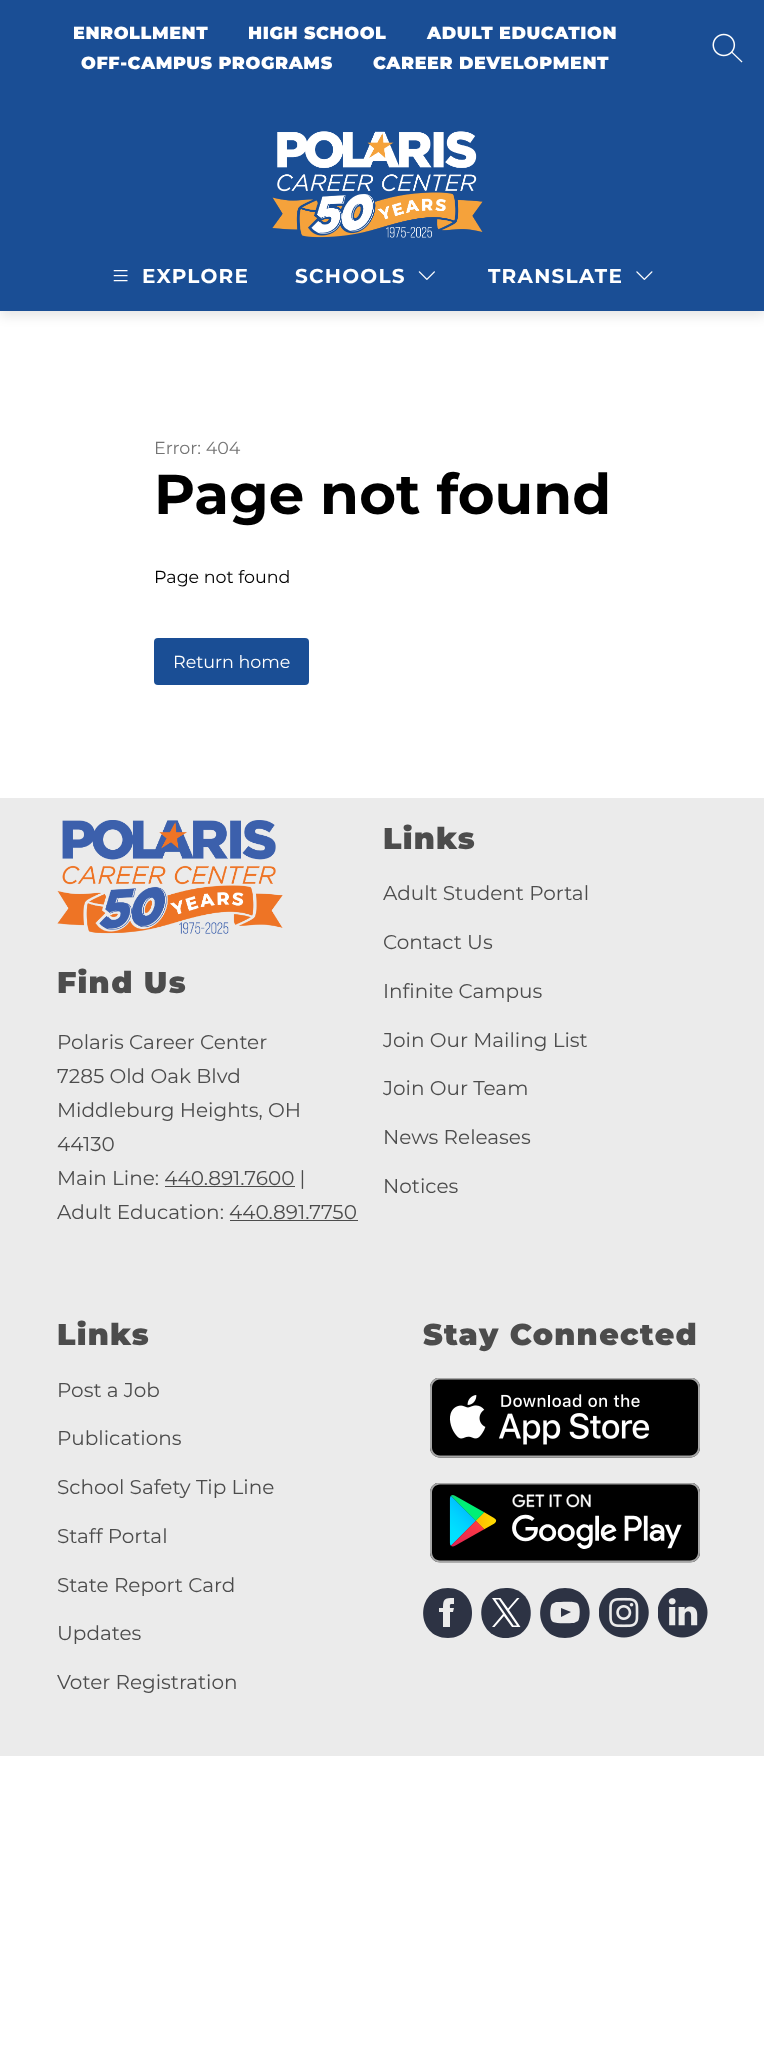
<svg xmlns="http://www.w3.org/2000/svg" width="764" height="2054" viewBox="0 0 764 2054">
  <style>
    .t1 { font: 900 17.5px Montserrat; letter-spacing: 0.6px; fill: #fff; }
    .t2 { font: bold 20px Montserrat; letter-spacing: 1.25px; fill: #fff; }
    .t3 { font: 17.5px Montserrat; fill: #747474; }
    .t4 { font: bold 56.25px Montserrat; fill: #000; }
    .t5 { font: 17.5px Montserrat; fill: #000; }
    .t6 { font: 17.5px Montserrat; fill: #fff; }
    .t7 { font: 900 30px Montserrat; letter-spacing: 1.25px; fill: #4c4c4c; }
    .t8 { font: 20px Montserrat; fill: #4c4c4c; }
  </style>
  <rect width="100%" height="100%" fill="#fff"/>
  <rect x="0" y="5" width="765" height="311" fill="#0000001a" filter="blur(6px)"/>
  <rect x="0" y="0" width="764" height="311" fill="#1a4e95"/>
  <text x="73" y="39" class="t1">ENROLLMENT</text>
  <text x="248" y="39" class="t1">HIGH SCHOOL</text>
  <text x="427" y="39" class="t1">ADULT EDUCATION</text>
  <text x="81" y="69" class="t1">OFF-CAMPUS PROGRAMS</text>
  <text x="373" y="69" class="t1">CAREER DEVELOPMENT</text>
  <image x="712" y="33" width="31" height="30" href="images/1.png"/>
  <image x="272" y="131" width="211" height="107" href="images/2.png"/>
  <image x="113" y="270" width="15" height="12" href="images/3.png"/>
  <text x="142" y="283" class="t2">EXPLORE</text>
  <text x="295" y="283" class="t2">SCHOOLS</text>
  <image x="418" y="271" width="17" height="9" href="images/4.png"/>
  <text x="488" y="283" class="t2">TRANSLATE</text>
  <image x="636" y="271" width="17" height="9" href="images/5.png"/>
  <text x="154" y="454" class="t3">Error: 404</text>
  <text x="154" y="514" class="t4">Page not found</text>
  <text x="154" y="583" class="t5">Page not found</text>
  <rect x="154" y="638" width="155" height="47" rx="4" fill="#1a4e95"/>
  <text x="173" y="668" class="t6">Return home</text>
  <rect x="0" y="798" width="764" height="958" fill="#ebebeb"/>
  <image x="57" y="820" width="226" height="114" href="images/6.png"/>
  <text x="57" y="993" class="t7">Find Us</text>
  <text x="57" y="1049" class="t8">Polaris Career Center</text>
  <text x="57" y="1083" class="t8">7285 Old Oak Blvd</text>
  <text x="57" y="1117" class="t8">Middleburg Heights, OH</text>
  <text x="57" y="1151" class="t8">44130</text>
  <text x="57" y="1185" class="t8">Main Line: 440.891.7600 |</text>
  <rect x="165" y="1186" width="130" height="1" fill="#4c4c4c"/>
  <text x="57" y="1219" class="t8">Adult Education: 440.891.7750</text>
  <rect x="230" y="1220" width="128" height="1" fill="#4c4c4c"/>
  <text x="383" y="849" class="t7">Links</text>
  <text x="383" y="900" class="t8">Adult Student Portal</text>
  <text x="383" y="949" class="t8">Contact Us</text>
  <text x="383" y="998" class="t8">Infinite Campus</text>
  <text x="383" y="1047" class="t8">Join Our Mailing List</text>
  <text x="383" y="1095" class="t8">Join Our Team</text>
  <text x="383" y="1144" class="t8">News Releases</text>
  <text x="383" y="1193" class="t8">Notices</text>
  <text x="57" y="1345" class="t7">Links</text>
  <text x="57" y="1397" class="t8">Post a Job</text>
  <text x="57" y="1445" class="t8">Publications</text>
  <text x="57" y="1494" class="t8">School Safety Tip Line</text>
  <text x="57" y="1543" class="t8">Staff Portal</text>
  <text x="57" y="1592" class="t8">State Report Card</text>
  <text x="57" y="1640" class="t8">Updates</text>
  <text x="57" y="1689" class="t8">Voter Registration</text>
  <text x="423" y="1345" class="t7">Stay Connected</text>
  <image x="430" y="1378" width="270" height="80" href="images/7.png"/>
  <image x="430" y="1483" width="270" height="80" href="images/8.png"/>
  <path d="M448 1588C415 1588 415 1638 448 1638C480 1638 480 1588 448 1588ZM454 1604C449 1604 450 1604 450 1608H454L453 1612H450V1627H443V1612H439V1608H443C443 1599 444 1598 454 1598Z" fill="#2d3344"/>
  <path d="M506 1588C473 1588 473 1637 506 1638C539 1638 539 1588 506 1588Z" fill="#2d3344"/>
  <path d="M509 1610L519.5 1598H517L508 1608.5L500.5 1598H492L503 1614L492 1627H494.5L504 1616L512 1627H520.5ZM495.5 1599.5H499L517 1625.5H513.5Z" fill="#fff"/>
  <path d="M565 1588C532 1588 532 1638 565 1638C598 1638 598 1588 565 1588ZM574 1623C570 1623 557 1624 553 1622C549 1620 550 1606 552 1604L556 1602C560 1602 574 1601 577 1603C581 1605 580 1619 578 1621ZM561 1608L571 1612L561 1617Z" fill="#2d3344"/>
  <image x="599" y="1588" width="50" height="50" href="images/9.png"/>
  <image x="658" y="1588" width="50" height="50" href="images/10.png"/>
</svg>
